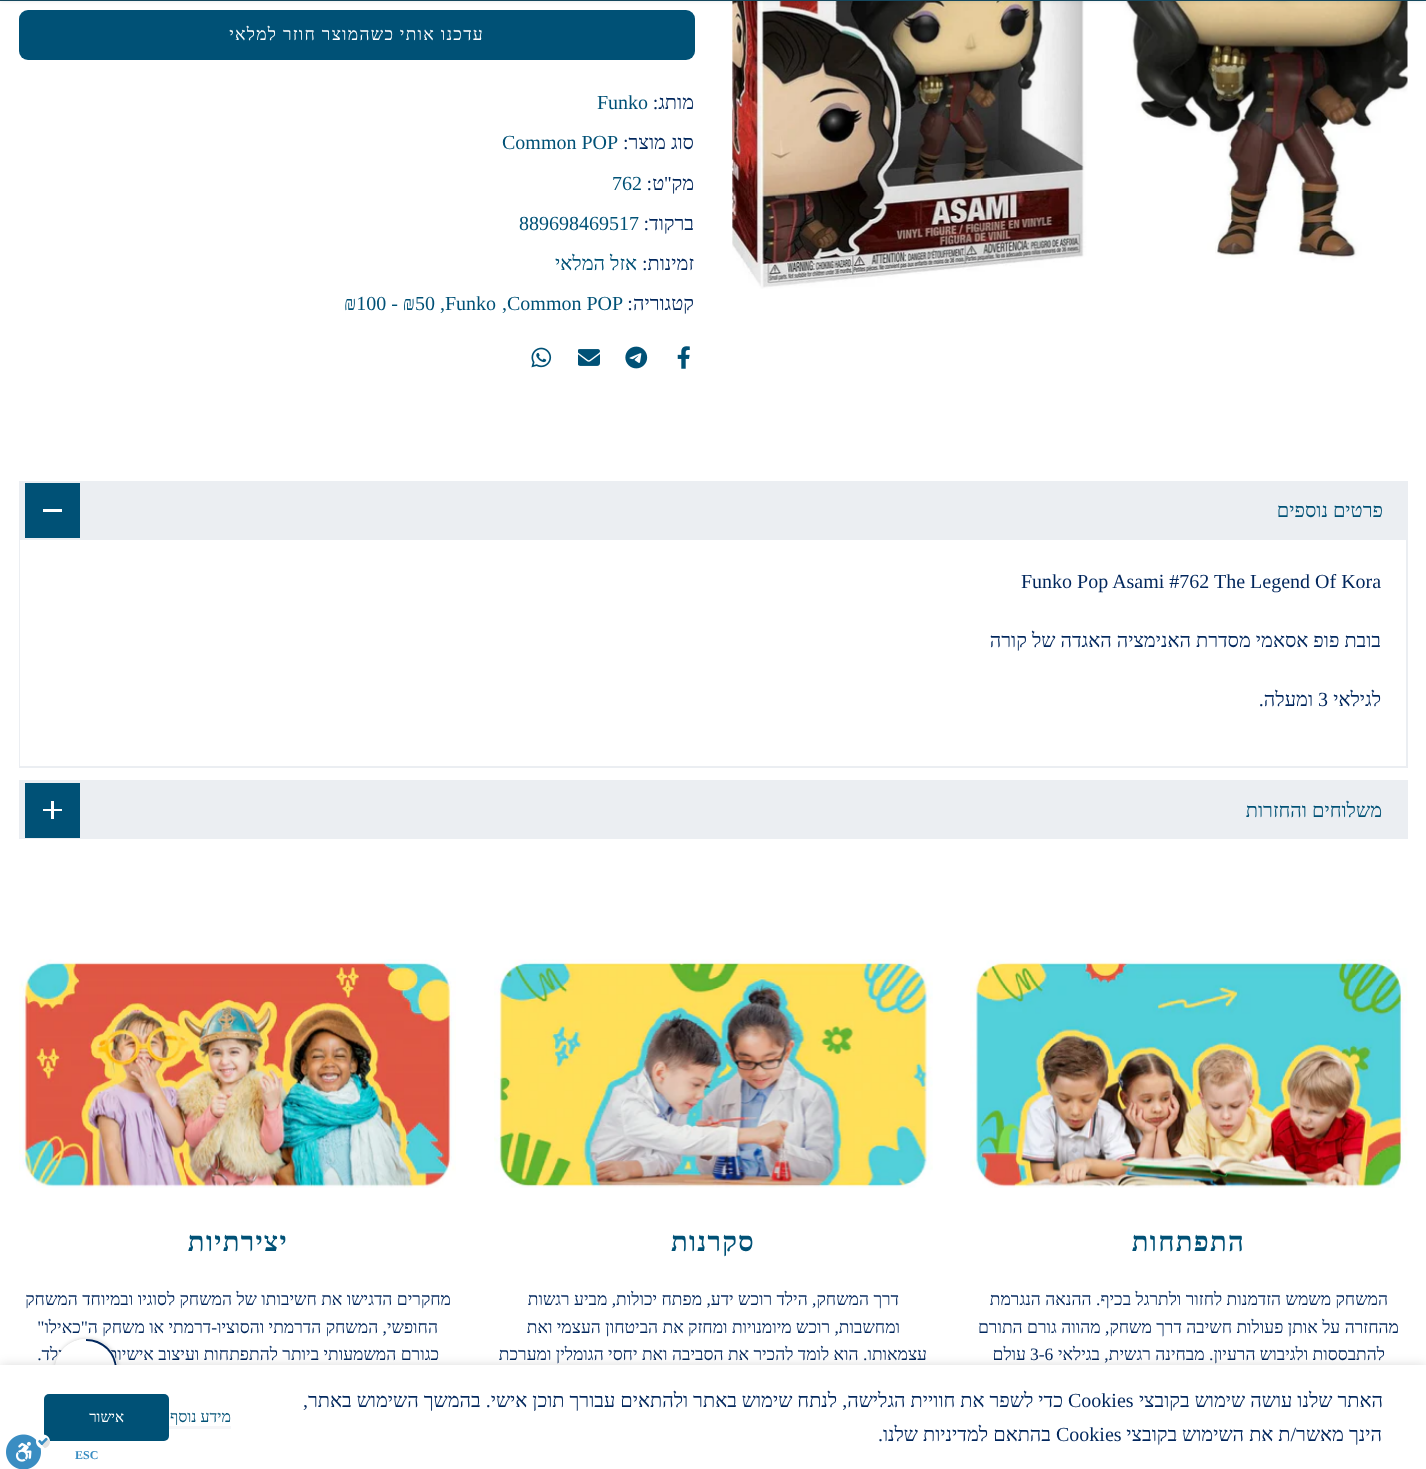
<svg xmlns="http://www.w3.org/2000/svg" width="1426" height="1469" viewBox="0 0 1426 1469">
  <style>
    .t1 { font: 17.5px Liberation Serif; letter-spacing: 1.25px; direction: rtl; fill: #fff; }
    .t2 { font: 20px Liberation Serif; direction: rtl; fill: #00265c; }
    .t3 { font: 20px Liberation Serif; fill: #005176; }
    .t4 { font: 20px Liberation Serif; direction: rtl; fill: #005176; }
    .t5 { font: 20px Liberation Serif; fill: #00265c; }
    .t6 { font: bold 27.5px Liberation Serif; letter-spacing: 1.25px; direction: rtl; fill: #005176; }
    .t7 { font: 17.5px Liberation Serif; direction: rtl; fill: #00265c; }
    .t8 { font: 17.5px Liberation Serif; fill: #00265c; }
    .t9 { font: 16px Liberation Serif; direction: rtl; fill: #005176; }
    .t10 { font: 15px Liberation Serif; direction: rtl; fill: #fff; }
    .t11 { font: bold 12px Liberation Serif; fill: #3a8dc2; }
  </style>
  <rect width="100%" height="100%" fill="#fff"/>
  <image x="732" y="1" width="676" height="288" href="images/1.png"/>
  <rect x="0" y="-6" width="1426" height="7" fill="#0000001a" filter="blur(2px)"/>
  <rect x="19" y="10" width="676" height="50" rx="9" fill="#005176"/>
  <text x="484" y="40" class="t1">עדכנו אותי כשהמוצר חוזר למלאי</text>
  <text x="694" y="109" class="t2">מותג:</text>
  <text x="597" y="109" class="t3">Funko</text>
  <text x="694" y="149" class="t2">סוג מוצר:</text>
  <text x="502" y="149" class="t3">Common POP</text>
  <text x="694" y="190" class="t2">מק''ט:</text>
  <text x="612" y="190" class="t3">762</text>
  <text x="694" y="230" class="t2">ברקוד:</text>
  <text x="519" y="230" class="t3">889698469517</text>
  <text x="694" y="270" class="t2">זמינות:</text>
  <text x="637" y="270" class="t4">אזל המלאי</text>
  <text x="694" y="310" class="t2">קטגוריה:</text>
  <text x="507" y="310" class="t3">Common POP</text>
  <text x="502" y="310" class="t3">,</text>
  <text x="445" y="310" class="t3">Funko</text>
  <text x="440" y="310" class="t3">,</text>
  <text x="344" y="310" class="t3">₪100 - ₪50</text>
  <image x="677" y="346" width="13" height="23" href="images/2.png"/>
  <image x="625" y="346" width="23" height="23" href="images/3.png"/>
  <image x="578" y="349" width="22" height="17" href="images/4.png"/>
  <image x="531" y="347" width="21" height="21" href="images/5.png"/>
  <rect x="19" y="481" width="1389" height="59" fill="#ebeef2"/>
  <text x="1383" y="517" class="t4">פרטים נוספים</text>
  <rect x="25" y="483" width="55" height="55" fill="#005176"/>
  <rect x="43" y="509" width="19" height="3" fill="#fff"/>
  <path d="M1408 540V768L1406 766V540Z" fill="#ebeef2"/>
  <path d="M1408 768H19L20 766H1406Z" fill="#00265c14"/>
  <path d="M19 768V540H20V766Z" fill="#00265c14"/>
  <text x="1021" y="588" class="t5">Funko Pop Asami #762 The Legend Of Kora</text>
  <text x="1381" y="647" class="t2">בובת פופ אסאמי מסדרת האנימציה האגדה של קורה</text>
  <text x="1381" y="706" class="t2">לגילאי</text>
  <text x="1318" y="706" class="t5">3</text>
  <text x="1313" y="706" class="t2">ומעלה.</text>
  <rect x="19" y="780" width="1389" height="59" fill="#ebeef2"/>
  <text x="1382" y="817" class="t4">משלוחים והחזרות</text>
  <rect x="25" y="783" width="55" height="55" fill="#005176"/>
  <rect x="51" y="801" width="3" height="18" fill="#fff"/>
  <rect x="43" y="809" width="19" height="2" fill="#fff"/>
  <image x="970" y="959" width="438" height="229" href="images/6.png"/>
  <text x="1245" y="1251" class="t6">התפתחות</text>
  <text x="1388" y="1305" class="t7">המשחק משמש הזדמנות לחזור ולתרגל בכיף. ההנאה הנגרמת</text>
  <text x="1399" y="1333" class="t7">מהחזרה על אותן פעולות חשיבה דרך משחק, מהווה גורם התורם</text>
  <text x="1385" y="1360" class="t7">להתבססות ולגיבוש הרעיון. מבחינה רגשית, בגילאי</text>
  <text x="1030" y="1360" class="t8">3-6</text>
  <text x="1026" y="1360" class="t7">עולם</text>
  <image x="494" y="959" width="439" height="229" href="images/7.png"/>
  <text x="755" y="1251" class="t6">סקרנות</text>
  <text x="899" y="1305" class="t7">דרך המשחק, הילד רוכש ידע, מפתח יכולות, מביע רגשות</text>
  <text x="900" y="1333" class="t7">ומחשבות, רוכש מיומנויות ומחזק את הביטחון העצמי ואת</text>
  <text x="927" y="1360" class="t7">עצמאותו. הוא לומד להכיר את הסביבה ואת יחסי הגומלין ומערכת</text>
  <image x="19" y="959" width="437" height="229" href="images/8.png"/>
  <text x="288" y="1251" class="t6">יצירתיות</text>
  <text x="451" y="1305" class="t7">מחקרים הדגישו את חשיבותו של המשחק לסוגיו ובמיוחד המשחק</text>
  <text x="438" y="1333" class="t7">החופשי, המשחק הדרמתי והסוציו-דרמתי או משחק ה"כאילו"</text>
  <text x="439" y="1360" class="t7">כגורם המשמעותי ביותר להתפתחות ועיצוב אישיותו של הילד.</text>
  <rect x="55" y="1339" width="63" height="62" rx="31" fill="#00000033" filter="blur(2px)"/>
  <rect x="55" y="1339" width="63" height="62" rx="31" fill="#fff"/>
  <path d="M86 1370V1339C120 1339 129 1386 98 1399Z" fill="#00265c"/>
  <path d="M86 1370L98 1399C66 1412 40 1370 65 1347C71 1342 79 1339 86 1339Z" fill="#fff"/>
  <rect x="58" y="1341" width="57" height="58" rx="28.5" fill="#fff"/>
  <rect x="0" y="1365" width="1426" height="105" fill="#00000024" filter="blur(5.5px)"/>
  <rect x="0" y="1365" width="1426" height="104" fill="#fff"/>
  <text x="1383" y="1407" class="t2">האתר שלנו עושה שימוש בקובצי</text>
  <text x="1068" y="1407" class="t5">Cookies</text>
  <text x="1063" y="1407" class="t2">כדי לשפר את חוויית הגלישה, לנתח שימוש באתר ולהתאים עבורך תוכן אישי. בהמשך השימוש באתר,</text>
  <text x="1382" y="1441" class="t2">הינך מאשר/ת את השימוש בקובצי</text>
  <text x="1056" y="1441" class="t5">Cookies</text>
  <text x="1051" y="1441" class="t2">בהתאם למדיניות שלנו.</text>
  <text x="231" y="1422" class="t9">מידע נוסף</text>
  <rect x="169" y="1426" width="62" height="3" fill="#f6f6f8"/>
  <rect x="44" y="1394" width="125" height="47" rx="5" fill="#005176"/>
  <text x="124" y="1422" class="t10">אישור</text>
  <rect x="0" y="0" width="1426" height="1" fill="#15495f"/>
  <text x="75" y="1459" class="t11">ESC</text>
  <image x="6" y="1434" width="44" height="35" href="images/9.png"/>
</svg>
